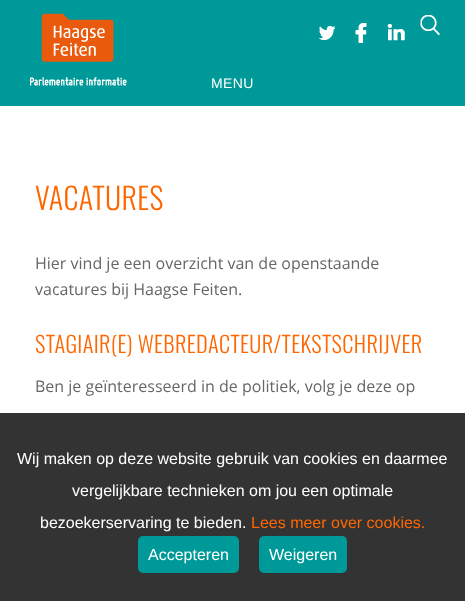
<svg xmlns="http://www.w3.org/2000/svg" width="465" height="601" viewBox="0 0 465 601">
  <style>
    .t1 { font: 14px Liberation Sans; letter-spacing: 0.35px; fill: #fff; }
    .t2 { font: 300 30px Oswald; letter-spacing: 0.35px; fill: #f60; }
    .t3 { font: 16px Open Sans; fill: #666; }
    .t4 { font: 300 22.4px Oswald; letter-spacing: 0.35px; fill: #f60; }
    .t5 { font: 16px Liberation Sans; fill: #fff; }
    .t6 { font: 16px Liberation Sans; fill: #f60; }
  </style>
  <rect width="100%" height="100%" fill="#fff"/>
  <rect x="0" y="0" width="465" height="106" fill="#099"/>
  <image x="30" y="13" width="97" height="73" href="images/1.png"/>
  <image x="318" y="26" width="18" height="14" href="images/2.png"/>
  <image x="355" y="23" width="12" height="20" href="images/3.png"/>
  <image x="387" y="24" width="18" height="17" href="images/4.png"/>
  <image x="420" y="15" width="20" height="21" href="images/5.png"/>
  <text x="211" y="88" class="t1">MENU</text>
  <text x="35" y="210" class="t2">VACATURES</text>
  <text x="35" y="269" class="t3">Hier vind je een overzicht van de openstaande</text>
  <text x="35" y="295" class="t3">vacatures bij Haagse Feiten.</text>
  <text x="35" y="353" class="t4">STAGIAIR(E) WEBREDACTEUR/TEKSTSCHRIJVER</text>
  <text x="35" y="392" class="t3">Ben je geïnteresseerd in de politiek, volg je deze op</text>
  <rect x="0" y="413" width="465" height="188" fill="#000000cc"/>
  <text x="17" y="464" class="t5">Wij maken op deze website gebruik van cookies en daarmee</text>
  <text x="72" y="496" class="t5">vergelijkbare technieken om jou een optimale</text>
  <text x="40" y="528" class="t5">bezoekerservaring te bieden.</text>
  <text x="251" y="528" class="t6">Lees meer over cookies.</text>
  <rect x="138" y="536" width="101" height="37" rx="5" fill="#099"/>
  <text x="148" y="560" class="t5">Accepteren</text>
  <rect x="259" y="536" width="88" height="37" rx="5" fill="#099"/>
  <text x="269" y="560" class="t5">Weigeren</text>
</svg>
